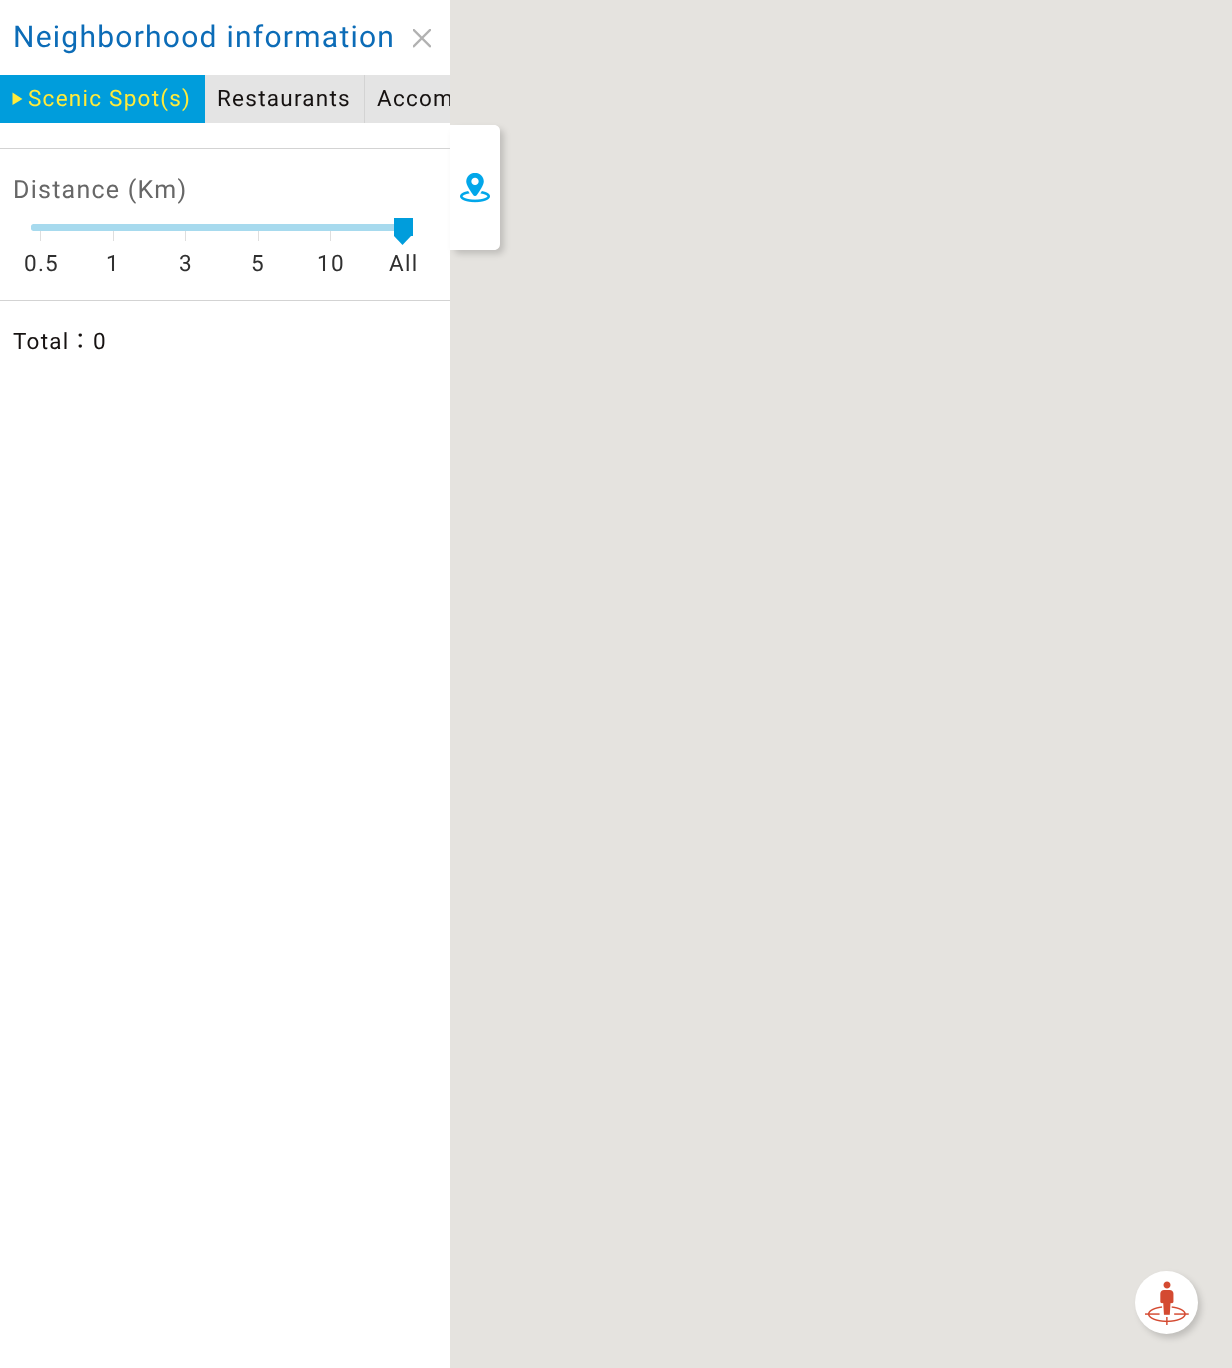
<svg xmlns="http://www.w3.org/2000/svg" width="1232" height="1368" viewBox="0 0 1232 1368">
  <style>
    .t1 { font: 30px Roboto; letter-spacing: 1.25px; fill: #0c6cb7; }
    .t2 { font: 22.5px Roboto; letter-spacing: 1.25px; fill: #ffeb3b; }
    .t3 { font: 22.5px Roboto; letter-spacing: 1.25px; fill: #161211; }
    .t4 { font: 25px Roboto; letter-spacing: 1.25px; fill: #676767; }
    .t5 { font: 22.5px Roboto; letter-spacing: 1.25px; fill: #303030; }
    .t6 { font: 22.5px Noto Sans TC; letter-spacing: 1.25px; fill: #161211; }
  </style>
  <defs>
    <clipPath id="clip1"><rect x="0" y="75" width="450" height="48"/></clipPath>
  </defs>
  <rect width="100%" height="100%" fill="#e5e3df"/>
  <rect x="0" y="0" width="450" height="1368" fill="#fff"/>
  <text x="13" y="47" class="t1">Neighborhood information</text>
  <image x="413" y="29" width="18" height="19" href="images/1.png"/>
  <rect x="454" y="129" width="50" height="125" rx="6" fill="#00000029" filter="blur(3px)"/>
  <rect x="0" y="148" width="450" height="1" fill="#d3d3d3"/>
  <rect x="0" y="75" width="205" height="48" fill="#009ddc"/>
  <path d="M12.5 105V92.5L22.5 99Z" fill="#ffeb3b"/>
  <text x="28" y="106" class="t2">Scenic Spot(s)</text>
  <rect x="205" y="75" width="159" height="48" fill="#e4e4e4"/>
  <rect x="364" y="75" width="1" height="48" fill="#d3d3d3"/>
  <text x="217" y="106" class="t3">Restaurants</text>
  <rect x="365" y="75" width="85" height="48" fill="#e4e4e4"/>
  <g clip-path="url(#clip1)">
    <text x="377" y="106" class="t3">Accom</text>
  </g>
  <rect x="0" y="300" width="450" height="1" fill="#d3d3d3"/>
  <text x="13" y="198" class="t4">Distance (Km)</text>
  <path d="M33.5 224H404V231H33.5C32 231 31 230 31 228.5V226.5C31 225 32 224 33.5 224Z" fill="#a7daee"/>
  <rect x="394" y="218" width="19" height="18" fill="#009ddc"/>
  <path d="M394 236H411L402.5 245Z" fill="#009ddc"/>
  <rect x="40" y="231" width="1" height="10" fill="#dedede"/>
  <rect x="113" y="231" width="1" height="10" fill="#dedede"/>
  <rect x="185" y="231" width="1" height="10" fill="#dedede"/>
  <rect x="258" y="231" width="1" height="10" fill="#dedede"/>
  <rect x="330" y="231" width="1" height="10" fill="#dedede"/>
  <text x="24" y="271" class="t5">0.5</text>
  <text x="106" y="271" class="t5">1</text>
  <text x="179" y="271" class="t5">3</text>
  <text x="251" y="271" class="t5">5</text>
  <text x="317" y="271" class="t5">10</text>
  <text x="389" y="271" class="t5">All</text>
  <text x="13" y="349" class="t3">Total</text>
  <text x="69" y="349" class="t6">：</text>
  <text x="93" y="349" class="t3">0</text>
  <path d="M450 125H494C497.5 125 500 127.5 500 131V244C500 247.5 497.5 250 494 250H450Z" fill="#fff"/>
  <image x="460" y="173" width="30" height="30" href="images/2.png"/>
  <rect x="1139" y="1275" width="62" height="63" rx="31" fill="#00000029" filter="blur(3px)"/>
  <circle cx="1166.5" cy="1302.5" r="31.5" fill="#fff"/>
  <image x="1145" y="1281" width="44" height="44" href="images/3.png"/>
</svg>
